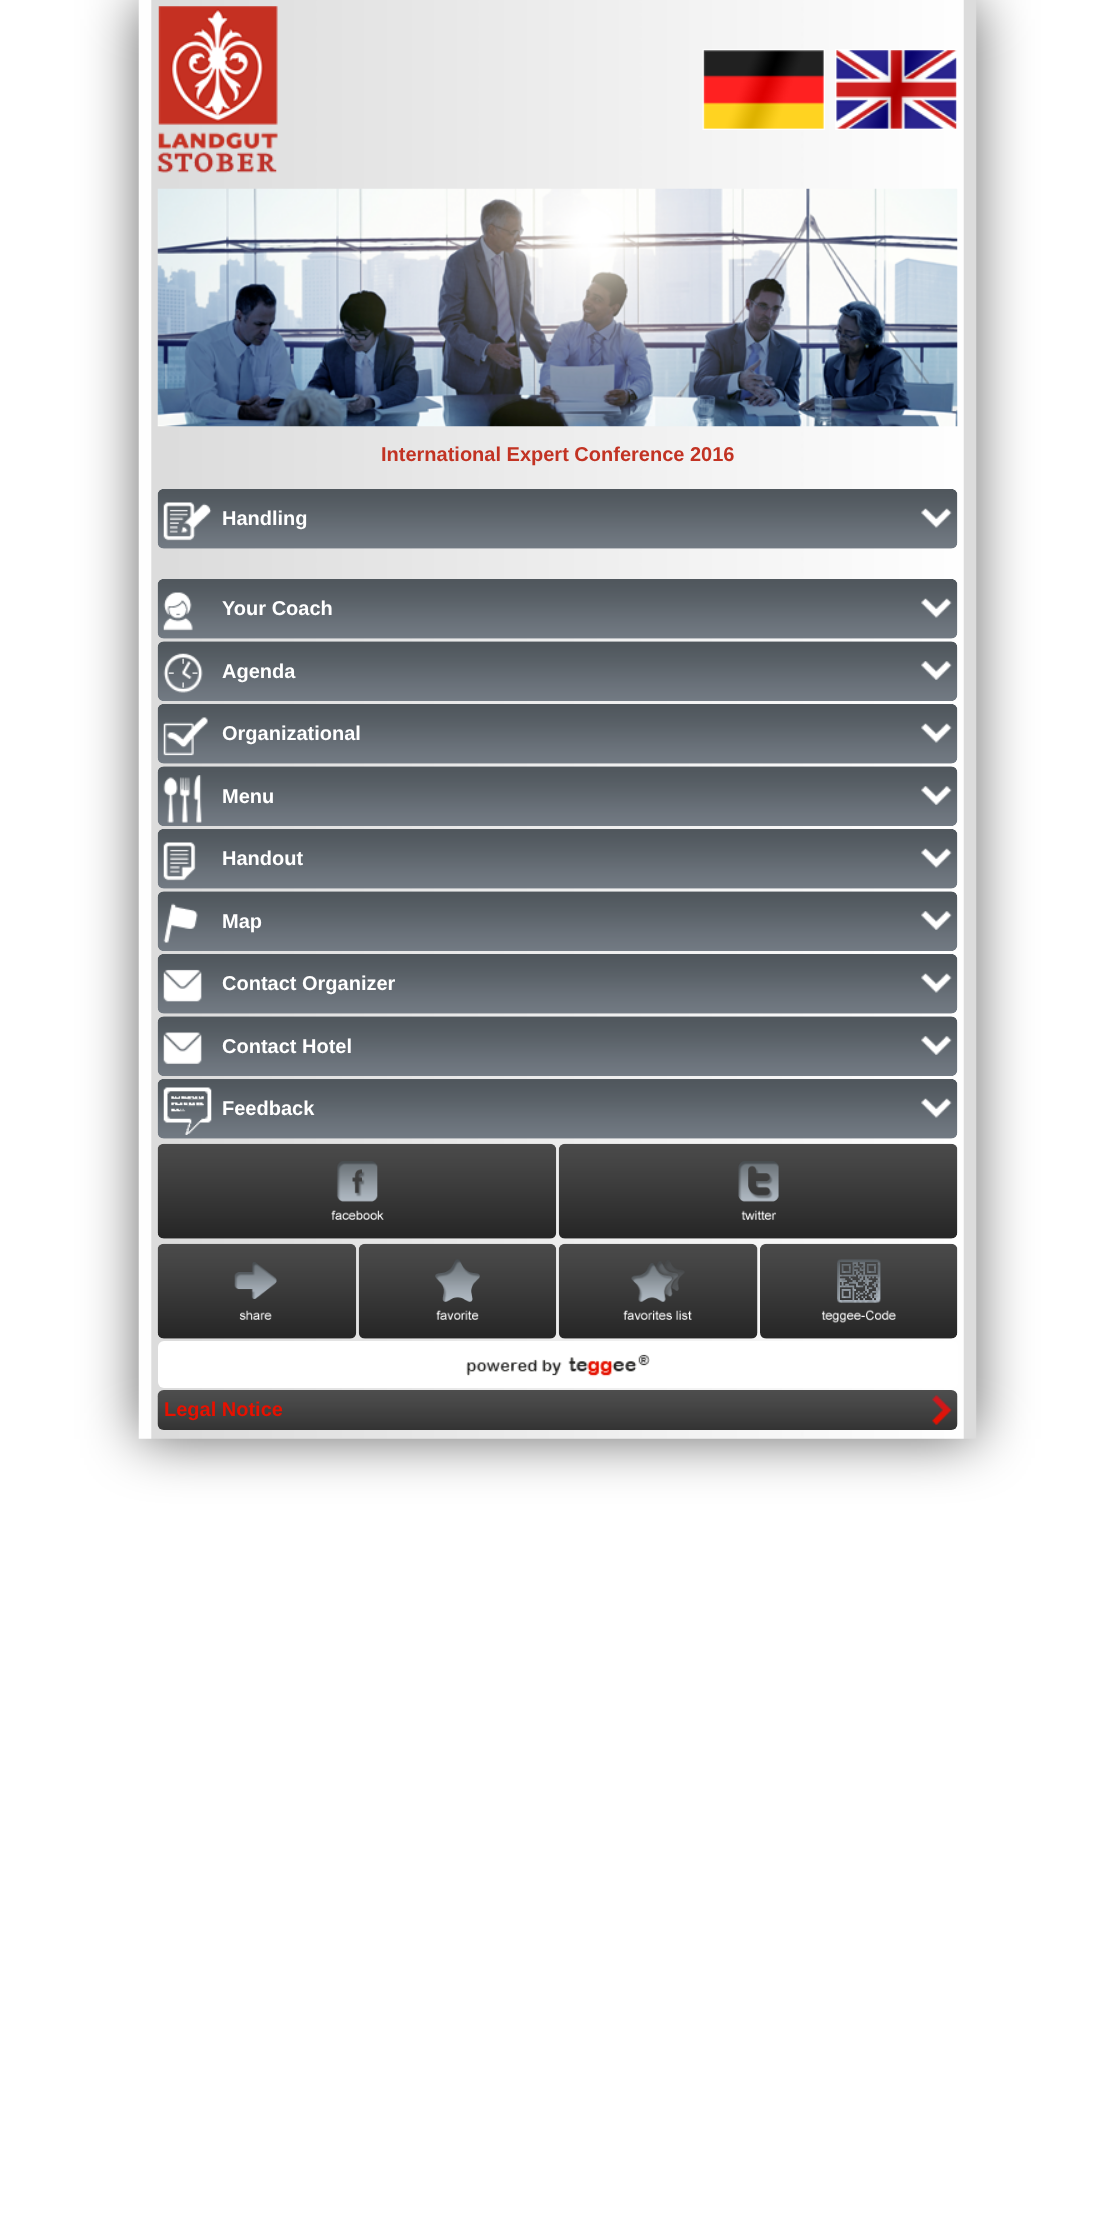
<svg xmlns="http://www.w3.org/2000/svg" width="1115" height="2239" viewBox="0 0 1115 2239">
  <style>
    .t1 { font: bold 20px Liberation Sans; fill: #c23323; }
    .t2 { font: bold 20px Liberation Sans; fill: #fff; }
    .t3 { font: bold 20px Liberation Sans; fill: #e71100; }
  </style>
  <rect width="100%" height="100%" fill="#fff"/>
  <rect x="139" y="0" width="837" height="1439" fill="#00000099" filter="blur(28px)"/>
  <image x="138" y="0" width="839" height="1439" href="images/1.png"/>
  <image x="157" y="6" width="121" height="167" href="images/2.png"/>
  <image x="702" y="49" width="123" height="81" href="images/3.png"/>
  <image x="835" y="49" width="122" height="81" href="images/4.png"/>
  <image x="157" y="188" width="801" height="239" href="images/5.png"/>
  <text x="381" y="461" class="t1">International Expert Conference 2016</text>
  <image x="157" y="489" width="801" height="60" href="images/6.png"/>
  <image x="163" y="502" width="49" height="39" href="images/7.png"/>
  <text x="222" y="525" class="t2">Handling</text>
  <image x="921" y="508" width="31" height="20" href="images/8.png"/>
  <image x="157" y="579" width="801" height="60" href="images/9.png"/>
  <image x="163" y="592" width="30" height="39" href="images/10.png"/>
  <text x="222" y="615" class="t2">Your Coach</text>
  <image x="921" y="598" width="31" height="20" href="images/8.png"/>
  <image x="157" y="641" width="801" height="60" href="images/11.png"/>
  <image x="163" y="653" width="40" height="40" href="images/12.png"/>
  <text x="222" y="678" class="t2">Agenda</text>
  <image x="921" y="661" width="31" height="19" href="images/13.png"/>
  <image x="157" y="704" width="801" height="60" href="images/14.png"/>
  <image x="163" y="717" width="45" height="39" href="images/15.png"/>
  <text x="222" y="740" class="t2">Organizational</text>
  <image x="921" y="723" width="31" height="20" href="images/8.png"/>
  <image x="157" y="766" width="801" height="60" href="images/11.png"/>
  <image x="163" y="775" width="39" height="48" href="images/16.png"/>
  <text x="222" y="803" class="t2">Menu</text>
  <image x="921" y="786" width="31" height="19" href="images/13.png"/>
  <image x="157" y="829" width="801" height="60" href="images/9.png"/>
  <image x="163" y="842" width="33" height="39" href="images/17.png"/>
  <text x="222" y="865" class="t2">Handout</text>
  <image x="921" y="848" width="31" height="20" href="images/8.png"/>
  <image x="157" y="891" width="801" height="60" href="images/11.png"/>
  <image x="163" y="903" width="35" height="40" href="images/18.png"/>
  <text x="222" y="928" class="t2">Map</text>
  <image x="921" y="911" width="31" height="19" href="images/13.png"/>
  <image x="157" y="954" width="801" height="60" href="images/9.png"/>
  <image x="163" y="969" width="39" height="33" href="images/19.png"/>
  <text x="222" y="990" class="t2">Contact Organizer</text>
  <image x="921" y="973" width="31" height="20" href="images/8.png"/>
  <image x="157" y="1016" width="801" height="60" href="images/20.png"/>
  <image x="163" y="1032" width="39" height="32" href="images/21.png"/>
  <text x="222" y="1053" class="t2">Contact Hotel</text>
  <image x="921" y="1036" width="31" height="19" href="images/13.png"/>
  <image x="157" y="1079" width="801" height="60" href="images/9.png"/>
  <image x="163" y="1087" width="49" height="48" href="images/22.png"/>
  <text x="222" y="1115" class="t2">Feedback</text>
  <image x="921" y="1098" width="31" height="20" href="images/8.png"/>
  <image x="157" y="1143" width="400" height="96" href="images/23.png"/>
  <image x="331" y="1161" width="53" height="59" href="images/24.png"/>
  <image x="558" y="1143" width="400" height="96" href="images/25.png"/>
  <image x="738" y="1161" width="41" height="59" href="images/26.png"/>
  <image x="157" y="1243" width="200" height="96" href="images/27.png"/>
  <image x="234" y="1262" width="43" height="58" href="images/28.png"/>
  <image x="358" y="1243" width="199" height="96" href="images/29.png"/>
  <image x="435" y="1259" width="45" height="61" href="images/30.png"/>
  <image x="558" y="1243" width="200" height="96" href="images/31.png"/>
  <image x="623" y="1260" width="69" height="60" href="images/32.png"/>
  <image x="760" y="1243" width="198" height="96" href="images/33.png"/>
  <image x="821" y="1259" width="75" height="64" href="images/34.png"/>
  <rect x="158" y="1341" width="800" height="47" rx="6" fill="#fff"/>
  <image x="466" y="1354" width="184" height="24" href="images/35.png"/>
  <image x="157" y="1390" width="801" height="40" href="images/36.png"/>
  <text x="164" y="1416" class="t3">Legal Notice</text>
  <image x="932" y="1395" width="20" height="30" href="images/37.png"/>
</svg>
